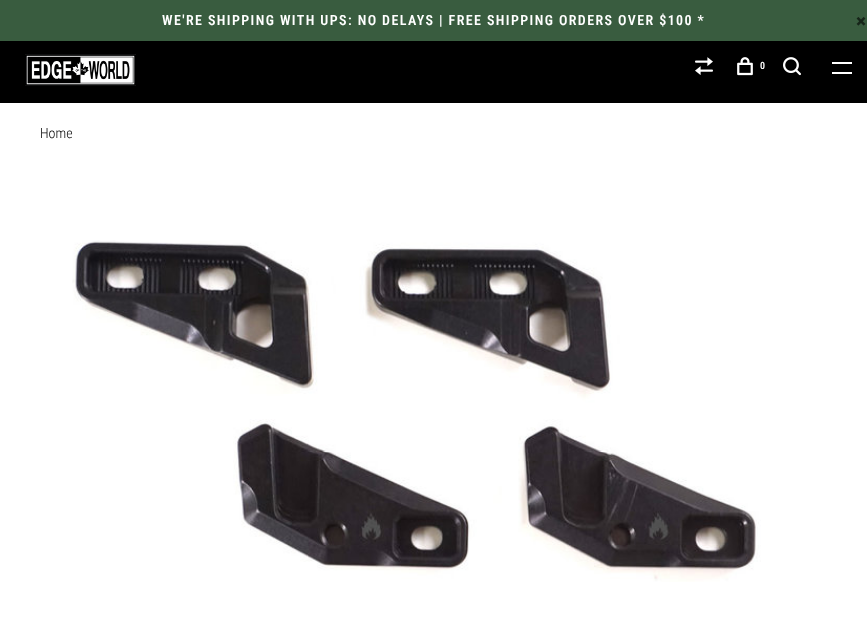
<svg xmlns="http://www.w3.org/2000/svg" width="867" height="623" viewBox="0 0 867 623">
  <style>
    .t1 { font: 600 14px Roboto Condensed; letter-spacing: 1.4px; fill: #fff; }
    .t2 { font: 600 10px Roboto Condensed; letter-spacing: 1.4px; fill: #fff; }
    .t3 { font: 300 14px Roboto Condensed; fill: #000; }
  </style>
  <rect width="100%" height="100%" fill="#fff"/>
  <rect x="0" y="0" width="867" height="41" fill="#395c3f"/>
  <text x="162" y="25" class="t1">WE'RE SHIPPING WITH UPS: NO DELAYS | FREE SHIPPING ORDERS OVER $100 *</text>
  <image x="856" y="17" width="10" height="9" href="images/1.png"/>
  <rect x="0" y="41" width="867" height="62" fill="#000"/>
  <image x="25" y="54" width="111" height="32" href="images/2.png"/>
  <image x="695" y="57" width="18" height="18" href="images/3.png"/>
  <image x="737" y="57" width="16" height="19" href="images/4.png"/>
  <text x="760" y="69" class="t2">0</text>
  <image x="783" y="57" width="18" height="19" href="images/5.png"/>
  <rect x="832" y="62" width="20" height="2" fill="#fff"/>
  <rect x="832" y="72" width="20" height="2" fill="#fff"/>
  <text x="40" y="138" class="t3">Home</text>
  <image x="72" y="240" width="689" height="342" href="images/6.png"/>
</svg>
